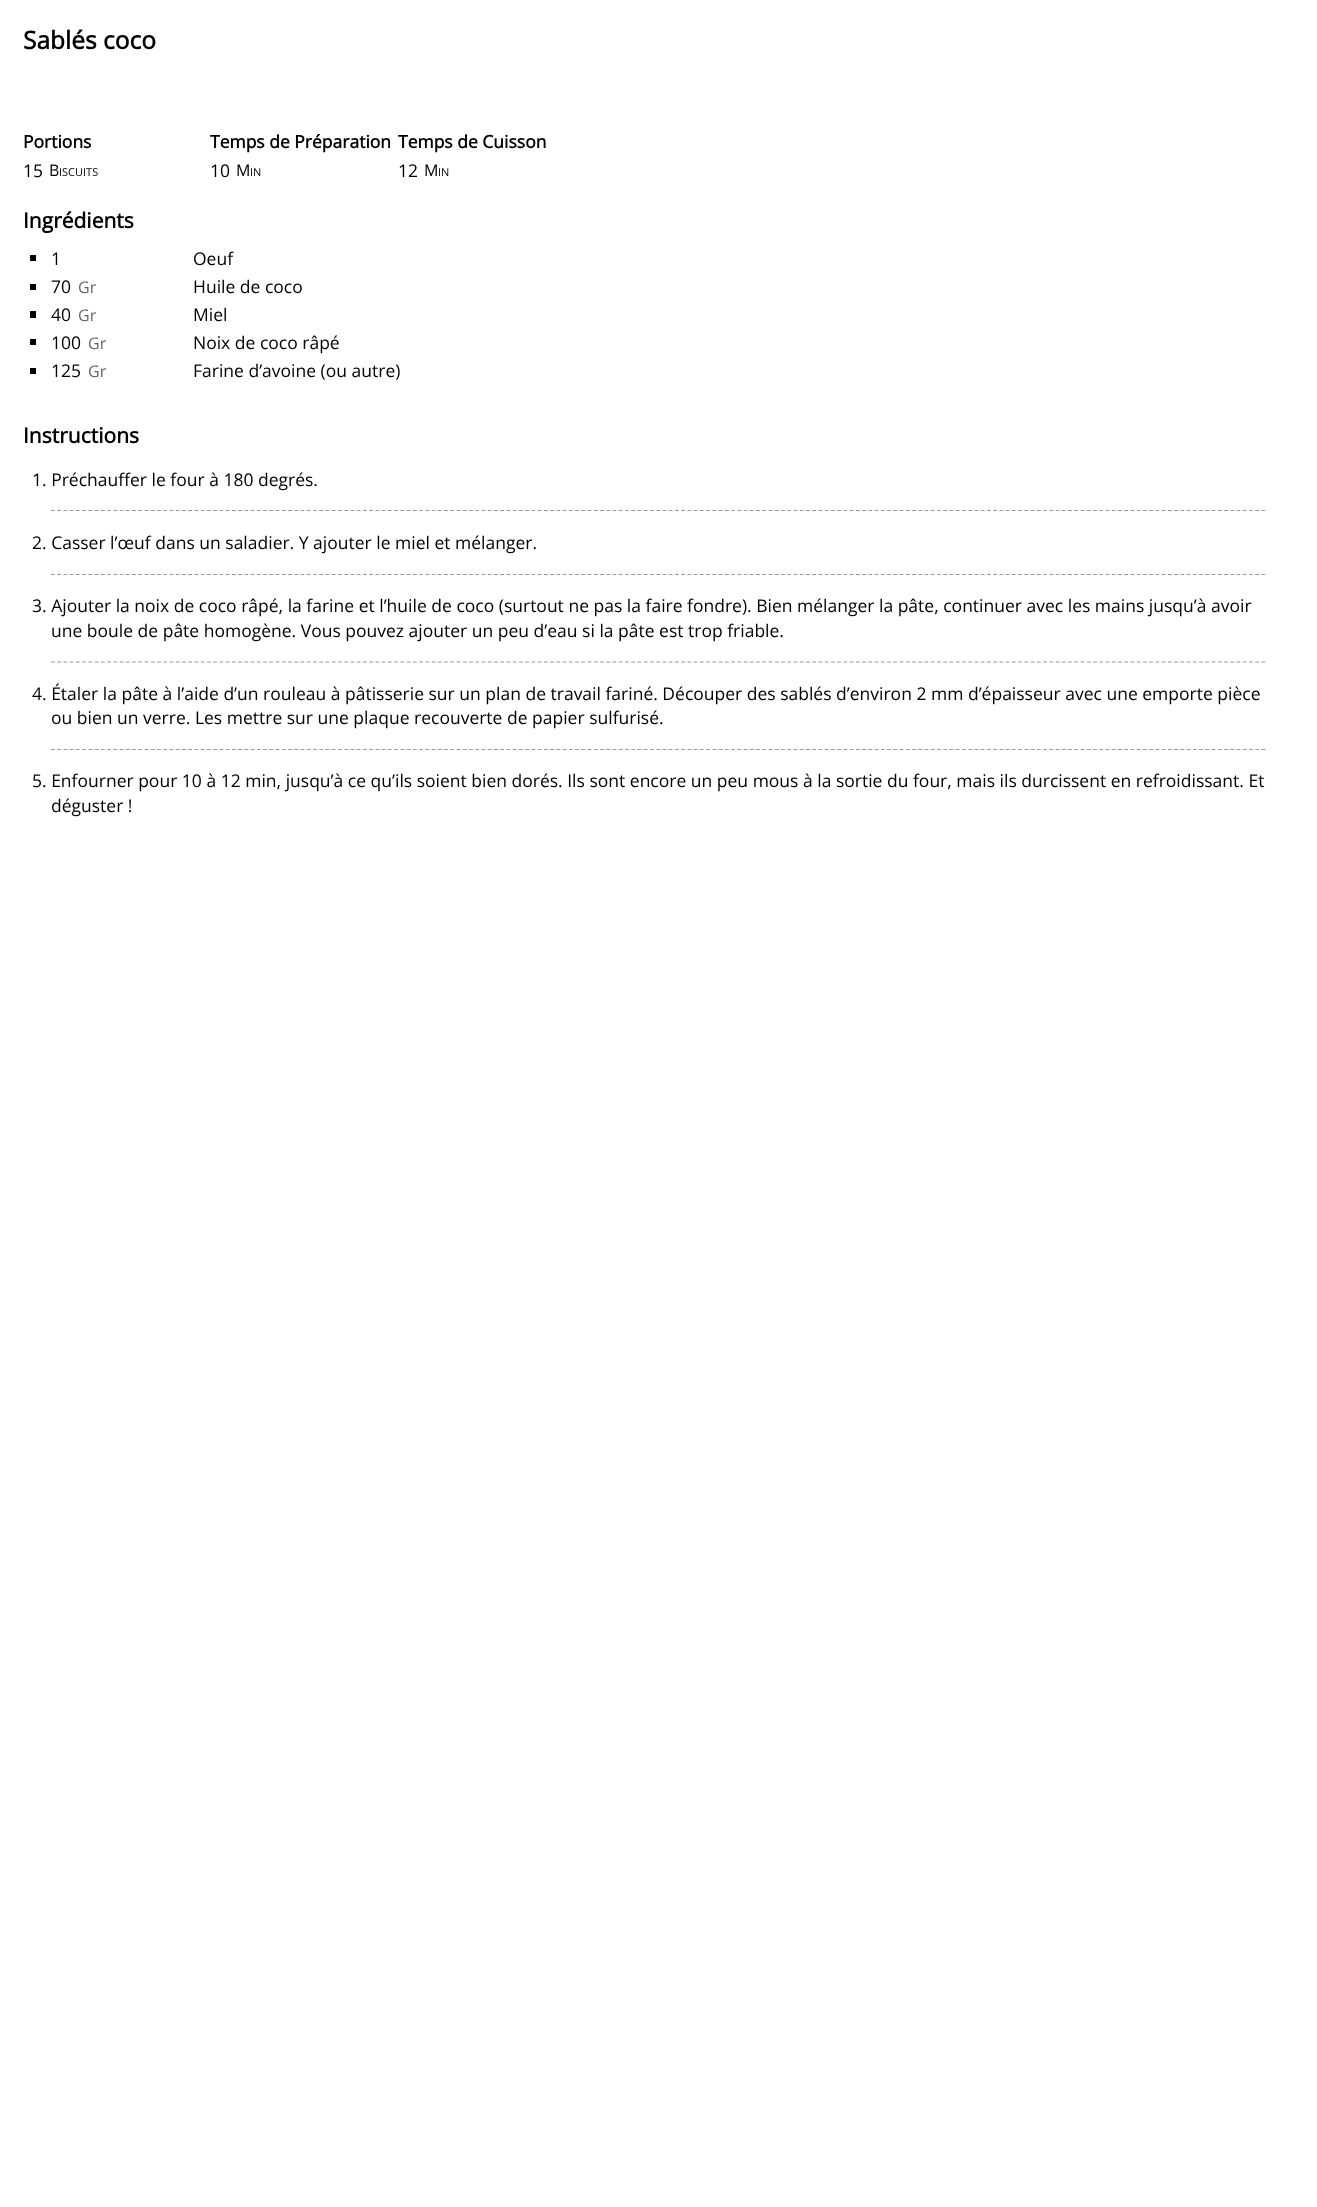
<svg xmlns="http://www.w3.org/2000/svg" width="1317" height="2207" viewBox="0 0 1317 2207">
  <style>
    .t1 { font: bold 24.5px Open Sans; fill: #000; }
    .t2 { font: bold 17.5px Open Sans; fill: #000; }
    .t3 { font: 17.5px Open Sans; fill: #000; }
    .t4 { font: 16px Open Sans; fill: #000; }
    .t5 { font: 11px Open Sans; fill: #000; }
    .t6 { font: bold 21px Open Sans; fill: #000; }
    .t7 { font: 16px Open Sans; fill: #666; }
  </style>
  <rect width="100%" height="100%" fill="#fff"/>
  <text x="23" y="49" class="t1">Sablés coco</text>
  <text x="23" y="148" class="t2">Portions</text>
  <text x="210" y="148" class="t2">Temps de Préparation</text>
  <text x="23" y="177" class="t3">15</text>
  <text x="49" y="176" class="t4">B</text>
  <text x="59" y="176" class="t5">ISCUITS</text>
  <text x="210" y="177" class="t3">10</text>
  <text x="236" y="176" class="t4">M</text>
  <text x="250" y="176" class="t5">IN</text>
  <text x="398" y="148" class="t2">Temps de Cuisson</text>
  <text x="398" y="177" class="t3">12</text>
  <text x="424" y="176" class="t4">M</text>
  <text x="438" y="176" class="t5">IN</text>
  <text x="23" y="228" class="t6">Ingrédients</text>
  <rect x="30" y="255" width="6" height="6" fill="#000"/>
  <text x="51" y="265" class="t3">1</text>
  <text x="193" y="265" class="t3">Oeuf</text>
  <rect x="30" y="284" width="6" height="6" fill="#000"/>
  <text x="51" y="293" class="t3">70</text>
  <text x="78" y="293" class="t7">Gr</text>
  <text x="193" y="293" class="t3">Huile de coco</text>
  <rect x="30" y="311" width="6" height="7" fill="#000"/>
  <text x="51" y="321" class="t3">40</text>
  <text x="78" y="321" class="t7">Gr</text>
  <text x="193" y="321" class="t3">Miel</text>
  <rect x="30" y="339" width="6" height="6" fill="#000"/>
  <text x="51" y="349" class="t3">100</text>
  <text x="88" y="349" class="t7">Gr</text>
  <text x="193" y="349" class="t3">Noix de coco râpé</text>
  <rect x="30" y="368" width="6" height="6" fill="#000"/>
  <text x="51" y="377" class="t3">125</text>
  <text x="88" y="377" class="t7">Gr</text>
  <text x="193" y="377" class="t3">Farine d’avoine (ou autre)</text>
  <text x="23" y="443" class="t6">Instructions</text>
  <path d="M51 510.5H1266" fill="none" stroke="#999" stroke-width="1.2" stroke-dasharray="3.75 2.49"/>
  <text x="32" y="486" class="t3">1. Préchauffer le four à 180 degrés.</text>
  <path d="M51 574.5H1266" fill="none" stroke="#999" stroke-width="1.2" stroke-dasharray="3.75 2.49"/>
  <text x="32" y="549" class="t3">2. Casser l’œuf dans un saladier. Y ajouter le miel et mélanger.</text>
  <path d="M51 662H1266" fill="none" stroke="#999" stroke-width="1.2" stroke-dasharray="3.75 2.49"/>
  <text x="32" y="612" class="t3">3. Ajouter la noix de coco râpé, la farine et l’huile de coco (surtout ne pas la faire fondre). Bien mélanger la pâte, continuer avec les mains jusqu’à avoir</text>
  <text x="51" y="637" class="t3">une boule de pâte homogène. Vous pouvez ajouter un peu d’eau si la pâte est trop friable.</text>
  <path d="M51 749.5H1266" fill="none" stroke="#999" stroke-width="1.2" stroke-dasharray="3.75 2.49"/>
  <text x="32" y="700" class="t3">4. Étaler la pâte à l’aide d’un rouleau à pâtisserie sur un plan de travail fariné. Découper des sablés d’environ 2 mm d’épaisseur avec une emporte pièce</text>
  <text x="51" y="724" class="t3">ou bien un verre. Les mettre sur une plaque recouverte de papier sulfurisé.</text>
  <text x="32" y="787" class="t3">5. Enfourner pour 10 à 12 min, jusqu’à ce qu’ils soient bien dorés. Ils sont encore un peu mous à la sortie du four, mais ils durcissent en refroidissant. Et</text>
  <text x="51" y="812" class="t3">déguster !</text>
</svg>
